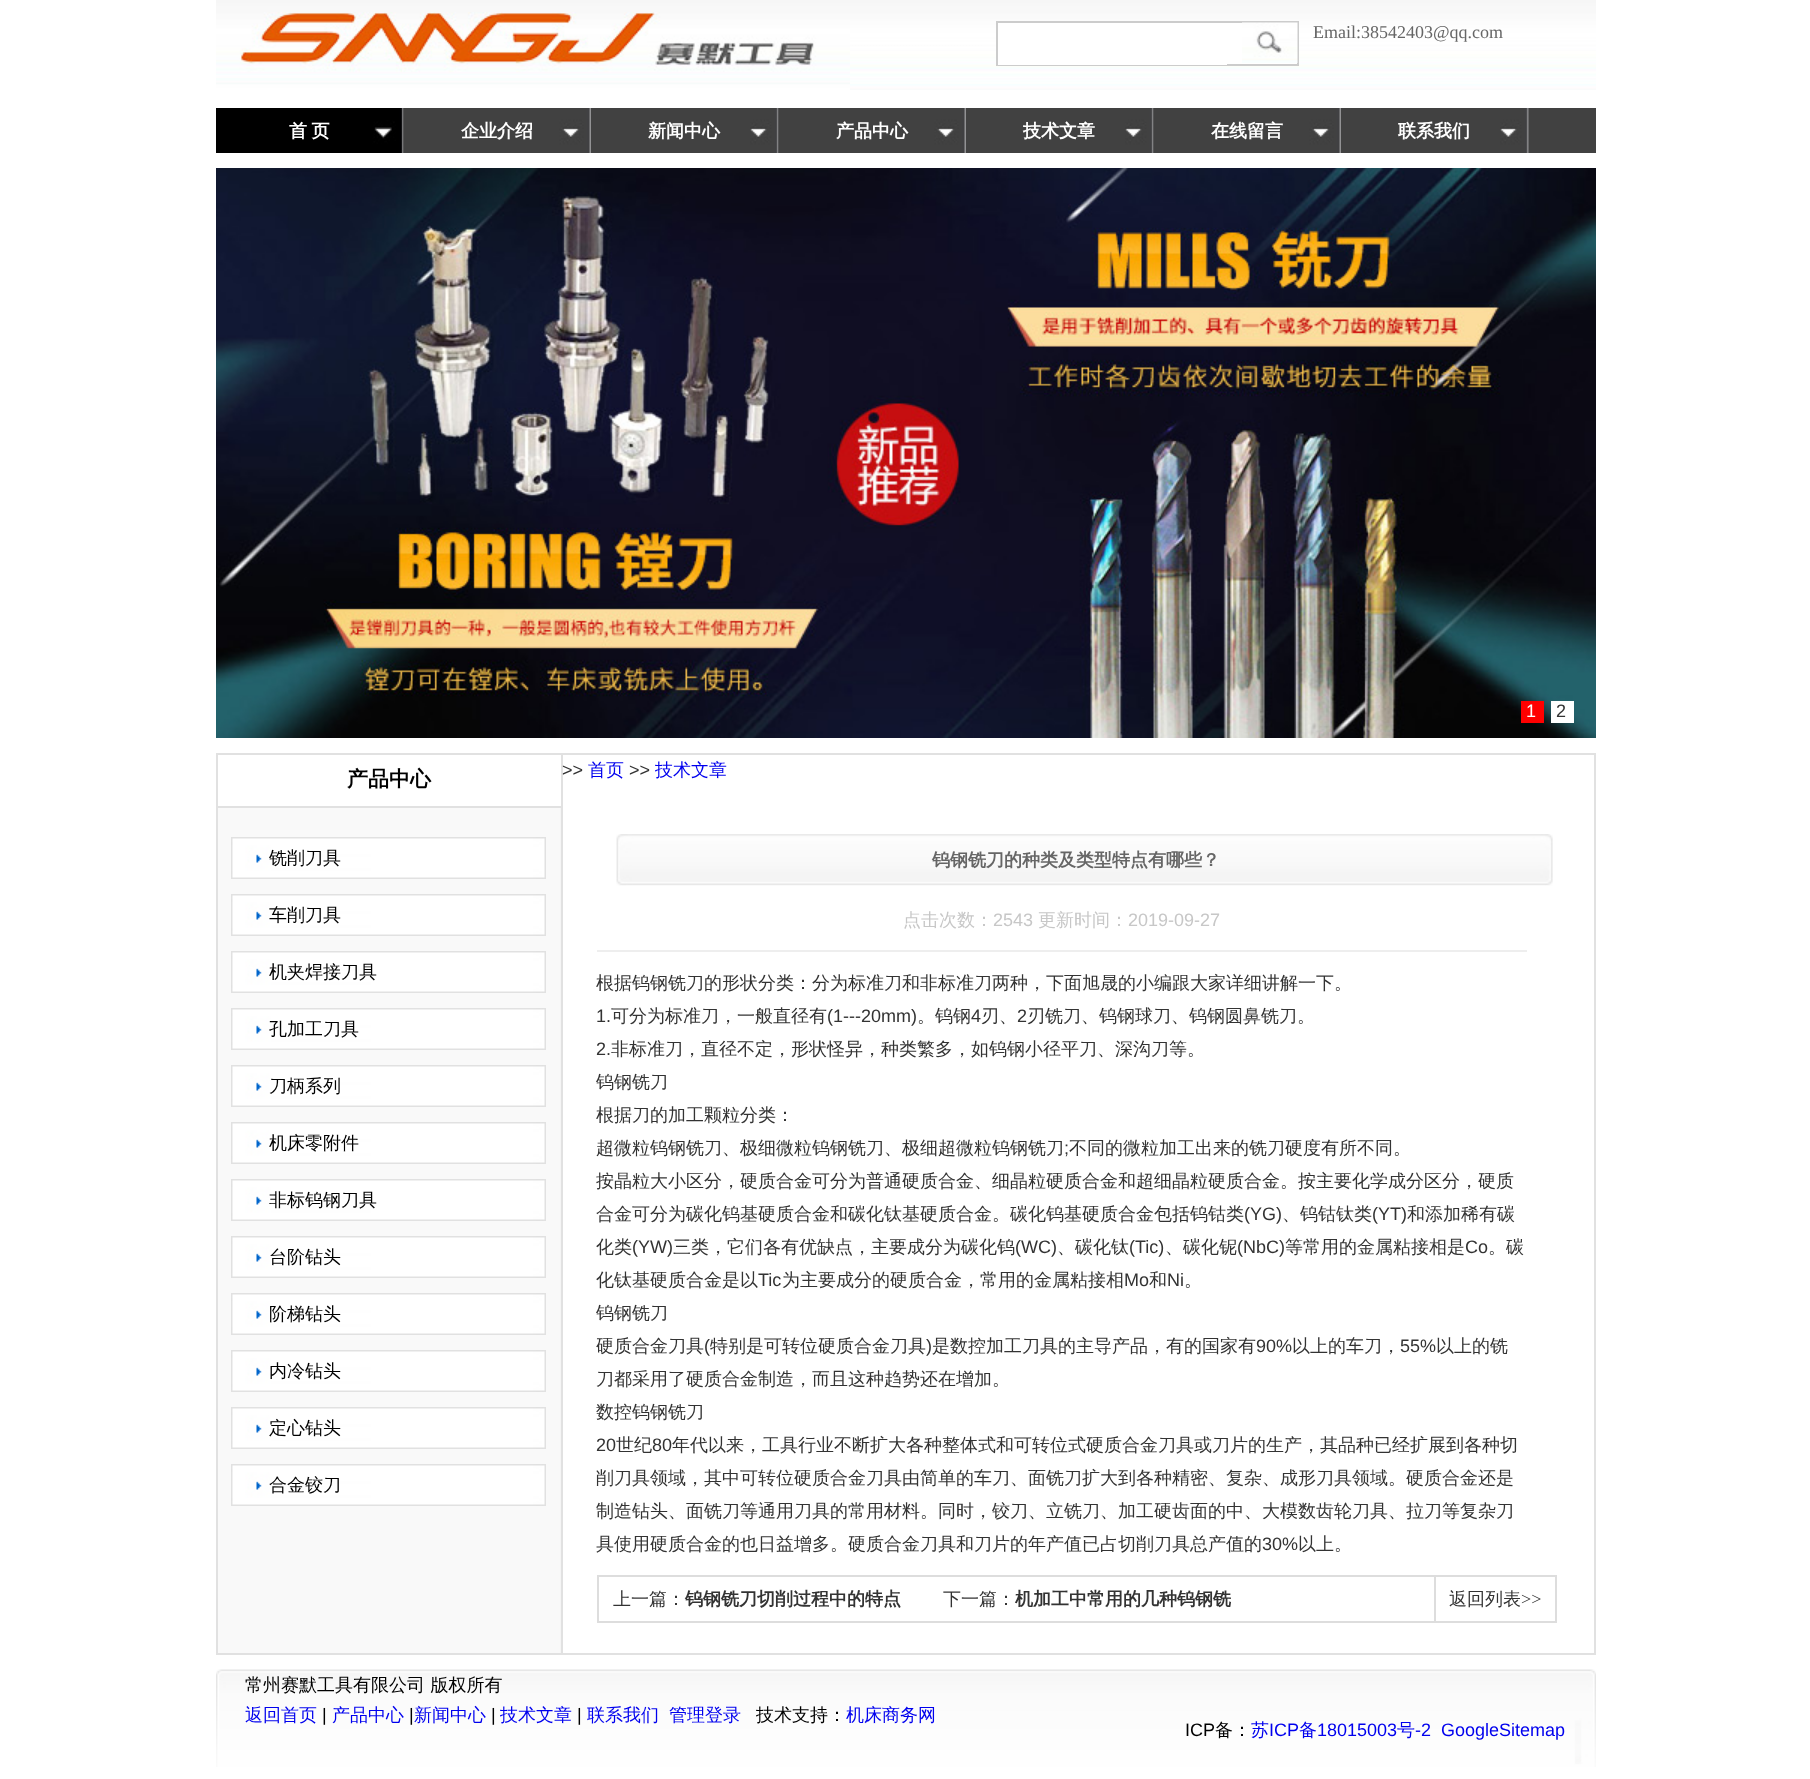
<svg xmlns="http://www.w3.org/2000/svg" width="1810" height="1779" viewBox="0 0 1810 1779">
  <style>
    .t1 { font: 18px Liberation Serif; fill: #666; }
    .t2 { font: bold 18px WenQuanYi Zen Hei; fill: #fff; }
    .t3 { font: 18px Liberation Sans; fill: #fff; }
    .t4 { font: 18px Liberation Sans; fill: #333; }
    .t5 { font: bold 21px WenQuanYi Zen Hei; fill: #000; }
    .t6 { font: 500 18px WenQuanYi Zen Hei; fill: #000; }
    .t7 { font: 500 18px WenQuanYi Zen Hei; fill: #00e; }
    .t8 { font: bold 18px WenQuanYi Zen Hei; fill: #666; }
    .t9 { font: 500 18px WenQuanYi Zen Hei; fill: #c7c7c7; }
    .t10 { font: 18px Liberation Sans; fill: #c7c7c7; }
    .t11 { font: 500 18px WenQuanYi Zen Hei; fill: #333; }
    .t12 { font: bold 18px WenQuanYi Zen Hei; fill: #333; }
    .t13 { font: 18px Liberation Serif; fill: #333; }
    .t14 { font: 18px Liberation Sans; fill: #000; }
    .t15 { font: 18px Liberation Sans; fill: #00e; }
  </style>
  <rect width="100%" height="100%" fill="#fff"/>
  <image x="216" y="0" width="1380" height="90" href="images/1.png"/>
  <image x="216" y="12" width="634" height="78" href="images/2.png"/>
  <rect x="1227" y="23" width="70" height="41" fill="#fff"/>
  <rect x="997" y="22" width="301" height="43" fill="none" stroke="#ccc" stroke-width="2"/>
  <rect x="998" y="23" width="229" height="42" fill="#fff"/>
  <image x="1242" y="22" width="56" height="41" href="images/3.png"/>
  <text x="1313" y="38" class="t1">Email:38542403@qq.com</text>
  <rect x="403" y="108" width="1193" height="45" fill="#414141"/>
  <image x="216" y="108" width="188" height="45" href="images/4.png"/>
  <text x="289" y="137" word-spacing="-1" class="t2">首 页</text>
  <image x="403" y="108" width="188" height="45" href="images/5.png"/>
  <text x="461" y="137" class="t2">企业介绍</text>
  <image x="750" y="108" width="29" height="45" href="images/6.png"/>
  <text x="648" y="137" class="t2">新闻中心</text>
  <image x="778" y="108" width="188" height="45" href="images/5.png"/>
  <text x="836" y="137" class="t2">产品中心</text>
  <image x="1125" y="108" width="29" height="45" href="images/6.png"/>
  <text x="1023" y="137" class="t2">技术文章</text>
  <image x="1153" y="108" width="188" height="45" href="images/5.png"/>
  <text x="1211" y="137" class="t2">在线留言</text>
  <image x="1500" y="108" width="29" height="45" href="images/6.png"/>
  <text x="1398" y="137" class="t2">联系我们</text>
  <image x="216" y="168" width="1380" height="570" href="images/7.png"/>
  <rect x="1521" y="701" width="23" height="22" fill="#f00"/>
  <text x="1526" y="717" class="t3">1</text>
  <rect x="1551" y="701" width="23" height="22" fill="#fff"/>
  <text x="1556" y="717" class="t4">2</text>
  <image x="218" y="808" width="343" height="845" href="images/8.png"/>
  <rect x="217" y="754" width="1378" height="900" fill="none" stroke="#e1e1e1" stroke-width="2"/>
  <rect x="218" y="806" width="343" height="2" fill="#e1e1e1"/>
  <text x="347" y="786" class="t5">产品中心</text>
  <image x="231" y="837" width="315" height="42" href="images/9.png"/>
  <text x="269" y="864" class="t6">铣削刀具</text>
  <image x="231" y="894" width="315" height="42" href="images/9.png"/>
  <text x="269" y="921" class="t6">车削刀具</text>
  <image x="231" y="951" width="315" height="42" href="images/9.png"/>
  <text x="269" y="978" class="t6">机夹焊接刀具</text>
  <image x="231" y="1008" width="315" height="42" href="images/9.png"/>
  <text x="269" y="1035" class="t6">孔加工刀具</text>
  <image x="231" y="1065" width="315" height="42" href="images/9.png"/>
  <text x="269" y="1092" class="t6">刀柄系列</text>
  <image x="231" y="1122" width="315" height="42" href="images/9.png"/>
  <text x="269" y="1149" class="t6">机床零附件</text>
  <image x="231" y="1179" width="315" height="42" href="images/9.png"/>
  <text x="269" y="1206" class="t6">非标钨钢刀具</text>
  <image x="231" y="1236" width="315" height="42" href="images/9.png"/>
  <text x="269" y="1263" class="t6">台阶钻头</text>
  <image x="231" y="1293" width="315" height="42" href="images/9.png"/>
  <text x="269" y="1320" class="t6">阶梯钻头</text>
  <image x="231" y="1350" width="315" height="42" href="images/9.png"/>
  <text x="269" y="1377" class="t6">内冷钻头</text>
  <image x="231" y="1407" width="315" height="42" href="images/9.png"/>
  <text x="269" y="1434" class="t6">定心钻头</text>
  <image x="231" y="1464" width="315" height="42" href="images/9.png"/>
  <text x="269" y="1491" class="t6">合金铰刀</text>
  <rect x="561" y="755" width="2" height="898" fill="#e1e1e1"/>
  <text x="562" y="776" class="t4">&gt;&gt;</text>
  <text x="588" y="776" class="t7">首页</text>
  <text x="629" y="776" class="t4">&gt;&gt;</text>
  <text x="655" y="776" class="t7">技术文章</text>
  <image x="616" y="834" width="937" height="52" href="images/10.png"/>
  <text x="932" y="866" class="t8">钨钢铣刀的种类及类型特点有哪些？</text>
  <rect x="597" y="950" width="930" height="2" fill="#eee"/>
  <text x="903" y="926" class="t9">点击次数：</text>
  <text x="993" y="926" class="t10">2543</text>
  <text x="1038" y="926" class="t9">更新时间：</text>
  <text x="1128" y="926" class="t10">2019-09-27</text>
  <text x="596" y="989" class="t11">根据钨钢铣刀的形状分类：分为标准刀和非标准刀两种，下面旭晟的小编跟大家详细讲解一下。</text>
  <text x="596" y="1022" class="t4">1.</text>
  <text x="611" y="1022" class="t11">可分为标准刀，一般直径有</text>
  <text x="827" y="1022" class="t4">(1---20mm)</text>
  <text x="917" y="1022" class="t11">。钨钢</text>
  <text x="971" y="1022" class="t4">4</text>
  <text x="981" y="1022" class="t11">刃、</text>
  <text x="1017" y="1022" class="t4">2</text>
  <text x="1027" y="1022" class="t11">刃铣刀、钨钢球刀、钨钢圆鼻铣刀。</text>
  <text x="596" y="1055" class="t4">2.</text>
  <text x="611" y="1055" class="t11">非标准刀，直径不定，形状怪异，种类繁多，如钨钢小径平刀、深沟刀等。</text>
  <text x="596" y="1088" class="t11">钨钢铣刀</text>
  <text x="596" y="1121" class="t11">根据刀的加工颗粒分类：</text>
  <text x="596" y="1154" class="t11">超微粒钨钢铣刀、极细微粒钨钢铣刀、极细超微粒钨钢铣刀</text>
  <text x="1064" y="1154" class="t4">;</text>
  <text x="1069" y="1154" class="t11">不同的微粒加工出来的铣刀硬度有所不同。</text>
  <text x="596" y="1187" class="t11">按晶粒大小区分，硬质合金可分为普通硬质合金、细晶粒硬质合金和超细晶粒硬质合金。按主要化学成分区分，硬质</text>
  <text x="596" y="1220" class="t11">合金可分为碳化钨基硬质合金和碳化钛基硬质合金。碳化钨基硬质合金包括钨钴类</text>
  <text x="1244" y="1220" class="t4">(YG)</text>
  <text x="1282" y="1220" class="t11">、钨钴钛类</text>
  <text x="1372" y="1220" class="t4">(YT)</text>
  <text x="1407" y="1220" class="t11">和添加稀有碳</text>
  <text x="596" y="1253" class="t11">化类</text>
  <text x="632" y="1253" class="t4">(YW)</text>
  <text x="673" y="1253" class="t11">三类，它们各有优缺点，主要成分为碳化钨</text>
  <text x="1015" y="1253" class="t4">(WC)</text>
  <text x="1057" y="1253" class="t11">、碳化钛</text>
  <text x="1129" y="1253" class="t4">(Tic)</text>
  <text x="1165" y="1253" class="t11">、碳化铌</text>
  <text x="1237" y="1253" class="t4">(NbC)</text>
  <text x="1285" y="1253" class="t11">等常用的金属粘接相是</text>
  <text x="1465" y="1253" class="t4">Co</text>
  <text x="1488" y="1253" class="t11">。碳</text>
  <text x="596" y="1286" class="t11">化钛基硬质合金是以</text>
  <text x="758" y="1286" class="t4">Tic</text>
  <text x="782" y="1286" class="t11">为主要成分的硬质合金，常用的金属粘接相</text>
  <text x="1124" y="1286" class="t4">Mo</text>
  <text x="1149" y="1286" class="t11">和</text>
  <text x="1167" y="1286" class="t4">Ni</text>
  <text x="1184" y="1286" class="t11">。</text>
  <text x="596" y="1319" class="t11">钨钢铣刀</text>
  <text x="596" y="1352" class="t11">硬质合金刀具</text>
  <text x="704" y="1352" class="t4">(</text>
  <text x="710" y="1352" class="t11">特别是可转位硬质合金刀具</text>
  <text x="926" y="1352" class="t4">)</text>
  <text x="932" y="1352" class="t11">是数控加工刀具的主导产品，有的国家有</text>
  <text x="1256" y="1352" class="t4">90%</text>
  <text x="1292" y="1352" class="t11">以上的车刀，</text>
  <text x="1400" y="1352" class="t4">55%</text>
  <text x="1436" y="1352" class="t11">以上的铣</text>
  <text x="596" y="1385" class="t11">刀都采用了硬质合金制造，而且这种趋势还在增加。</text>
  <text x="596" y="1418" class="t11">数控钨钢铣刀</text>
  <text x="596" y="1451" class="t4">20</text>
  <text x="616" y="1451" class="t11">世纪</text>
  <text x="652" y="1451" class="t4">80</text>
  <text x="672" y="1451" class="t11">年代以来，工具行业不断扩大各种整体式和可转位式硬质合金刀具或刀片的生产，其品种已经扩展到各种切</text>
  <text x="596" y="1484" class="t11">削刀具领域，其中可转位硬质合金刀具由简单的车刀、面铣刀扩大到各种精密、复杂、成形刀具领域。硬质合金还是</text>
  <text x="596" y="1517" class="t11">制造钻头、面铣刀等通用刀具的常用材料。同时，铰刀、立铣刀、加工硬齿面的中、大模数齿轮刀具、拉刀等复杂刀</text>
  <text x="596" y="1550" class="t11">具使用硬质合金的也日益增多。硬质合金刀具和刀片的年产值已占切削刀具总产值的</text>
  <text x="1262" y="1550" class="t4">30%</text>
  <text x="1298" y="1550" class="t11">以上。</text>
  <rect x="598" y="1576" width="958" height="46" fill="none" stroke="#ddd" stroke-width="2"/>
  <text x="613" y="1605" class="t11">上一篇：</text>
  <text x="685" y="1605" class="t12">钨钢铣刀切削过程中的特点</text>
  <text x="943" y="1605" class="t11">下一篇：</text>
  <text x="1015" y="1605" class="t12">机加工中常用的几种钨钢铣</text>
  <rect x="1434" y="1577" width="2" height="45" fill="#ddd"/>
  <text x="1449" y="1605" class="t11">返回列表</text>
  <text x="1521" y="1605" class="t13">&gt;&gt;</text>
  <image x="216" y="1669" width="1380" height="98" href="images/11.png"/>
  <text x="245" y="1691" class="t6">常州赛默工具有限公司 版权所有</text>
  <text x="245" y="1721" class="t7">返回首页</text>
  <text x="322" y="1721" class="t14">|</text>
  <text x="332" y="1721" class="t7">产品中心</text>
  <text x="409" y="1721" class="t14">|</text>
  <text x="414" y="1721" class="t7">新闻中心</text>
  <text x="491" y="1721" class="t14">|</text>
  <text x="500" y="1721" class="t7">技术文章</text>
  <text x="577" y="1721" class="t14">|</text>
  <text x="587" y="1721" class="t7">联系我们</text>
  <text x="669" y="1721" class="t7">管理登录</text>
  <text x="756" y="1721" class="t6">技术支持：</text>
  <text x="846" y="1721" class="t7">机床商务网</text>
  <text x="1185" y="1736" class="t14">ICP</text>
  <text x="1215" y="1736" class="t6">备：</text>
  <text x="1251" y="1736" class="t7">苏</text>
  <text x="1269" y="1736" class="t15">ICP</text>
  <text x="1299" y="1736" class="t7">备</text>
  <text x="1317" y="1736" class="t15">18015003</text>
  <text x="1397" y="1736" class="t7">号</text>
  <text x="1415" y="1736" class="t15">-2</text>
  <text x="1441" y="1736" class="t15">GoogleSitemap</text>
</svg>
